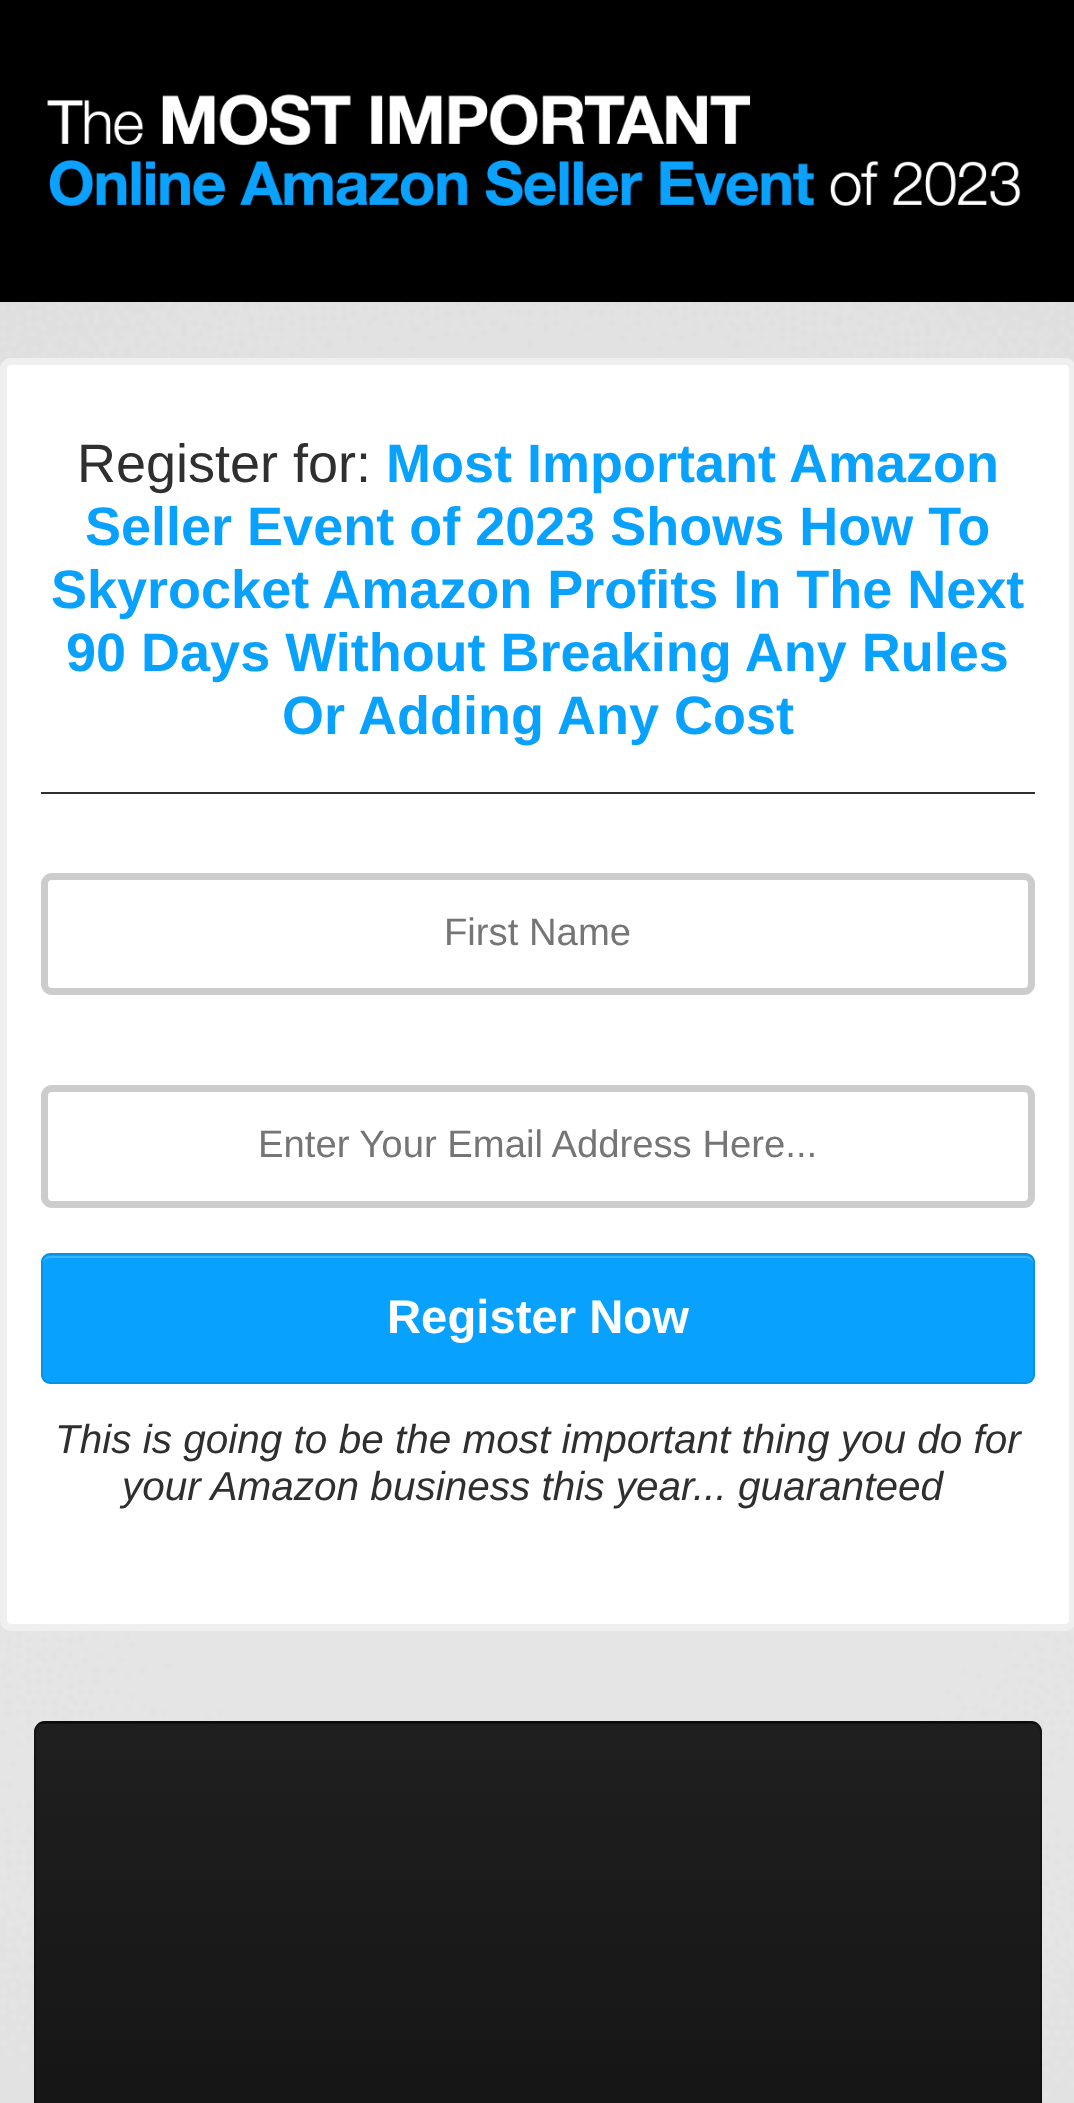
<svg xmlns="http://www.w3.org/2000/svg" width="1074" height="2103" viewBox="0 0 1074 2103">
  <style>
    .t1 { font: 54px Liberation Sans; fill: #2f2f2f; }
    .t2 { font: bold 54px Liberation Sans; fill: #09a1fe; }
    .t3 { font: 38.25px Liberation Sans; fill: #757575; }
    .t4 { font: bold 47.25px Liberation Sans; fill: #fff; }
    .t5 { font: italic 40.5px Liberation Sans; fill: #2f2f2f; }
  </style>
  <defs>
    <clipPath id="clip1"><rect x="34" y="1721" width="1008" height="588" rx="11"/></clipPath>
    <linearGradient id="g1" gradientUnits="userSpaceOnUse" x1="538" y1="1145" x2="538" y2="1724"><stop offset="0" stop-color="#1f1f1f"/><stop offset="1" stop-color="#111"/></linearGradient>
    <linearGradient id="g2" gradientUnits="userSpaceOnUse" x1="538" y1="1724" x2="538" y2="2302"><stop offset="0" stop-color="#1f1f1f"/><stop offset="1" stop-color="#111"/></linearGradient>
  </defs>
  <rect width="100%" height="100%" fill="#fff"/>
  <image x="0" y="302" width="1074" height="1801" href="images/1.png"/>
  <rect x="0" y="0" width="1074" height="302" fill="#000"/>
  <image x="47" y="94" width="974" height="113" href="images/2.png"/>
  <rect x="0" y="358" width="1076" height="1273" rx="11" fill="#fff"/>
  <rect x="3.5" y="361.5" width="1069" height="1266" rx="7.5" fill="none" stroke="#2f2f2f14" stroke-width="7"/>
  <text x="77" y="482" class="t1">Register for:</text>
  <text x="386" y="482" class="t2">Most Important Amazon</text>
  <text x="85" y="545" class="t2">Seller Event of 2023 Shows How To</text>
  <text x="51" y="608" class="t2">Skyrocket Amazon Profits In The Next</text>
  <text x="66" y="671" class="t2">90 Days Without Breaking Any Rules</text>
  <text x="282" y="734" class="t2">Or Adding Any Cost</text>
  <rect x="41" y="792" width="994" height="2" fill="#2f2f2f"/>
  <rect x="44.5" y="876.5" width="987" height="115" rx="7.5" fill="none" stroke="#ccc" stroke-width="7"/>
  <text x="444" y="945" class="t3">First Name</text>
  <rect x="44.5" y="1088.5" width="987" height="116" rx="7.5" fill="none" stroke="#ccc" stroke-width="7"/>
  <text x="258" y="1157" class="t3">Enter Your Email Address Here...</text>
  <rect x="41" y="1253" width="994" height="131" rx="9" fill="#09a1fe"/>
  <path d="M50 1258H1026C1030 1258 1033 1261 1033 1264V1263C1033 1259 1030 1256 1026 1256H50C46 1256 43 1259 43 1263V1264C43 1261 46 1258 50 1258Z" fill="#3ab4fe"/>
  <rect x="42" y="1254" width="992" height="129" rx="8" fill="none" stroke="#0000001a" stroke-width="2"/>
  <text x="387" y="1333" class="t4">Register Now</text>
  <text x="55" y="1453" class="t5">This is going to be the most important thing you do for</text>
  <text x="122" y="1500" class="t5">your Amazon business this year... guaranteed</text>
  <rect x="47" y="1757" width="981" height="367" fill="#777" filter="blur(7px)"/>
  <g clip-path="url(#clip1)">
    <rect x="34" y="1721" width="1008" height="3" fill="url(#g1)"/>
    <rect x="34" y="1724" width="1008" height="379" fill="url(#g2)"/>
  </g>
  <rect x="35" y="1722" width="1006" height="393" rx="10" fill="none" stroke="#0000004d" stroke-width="2"/>
</svg>
